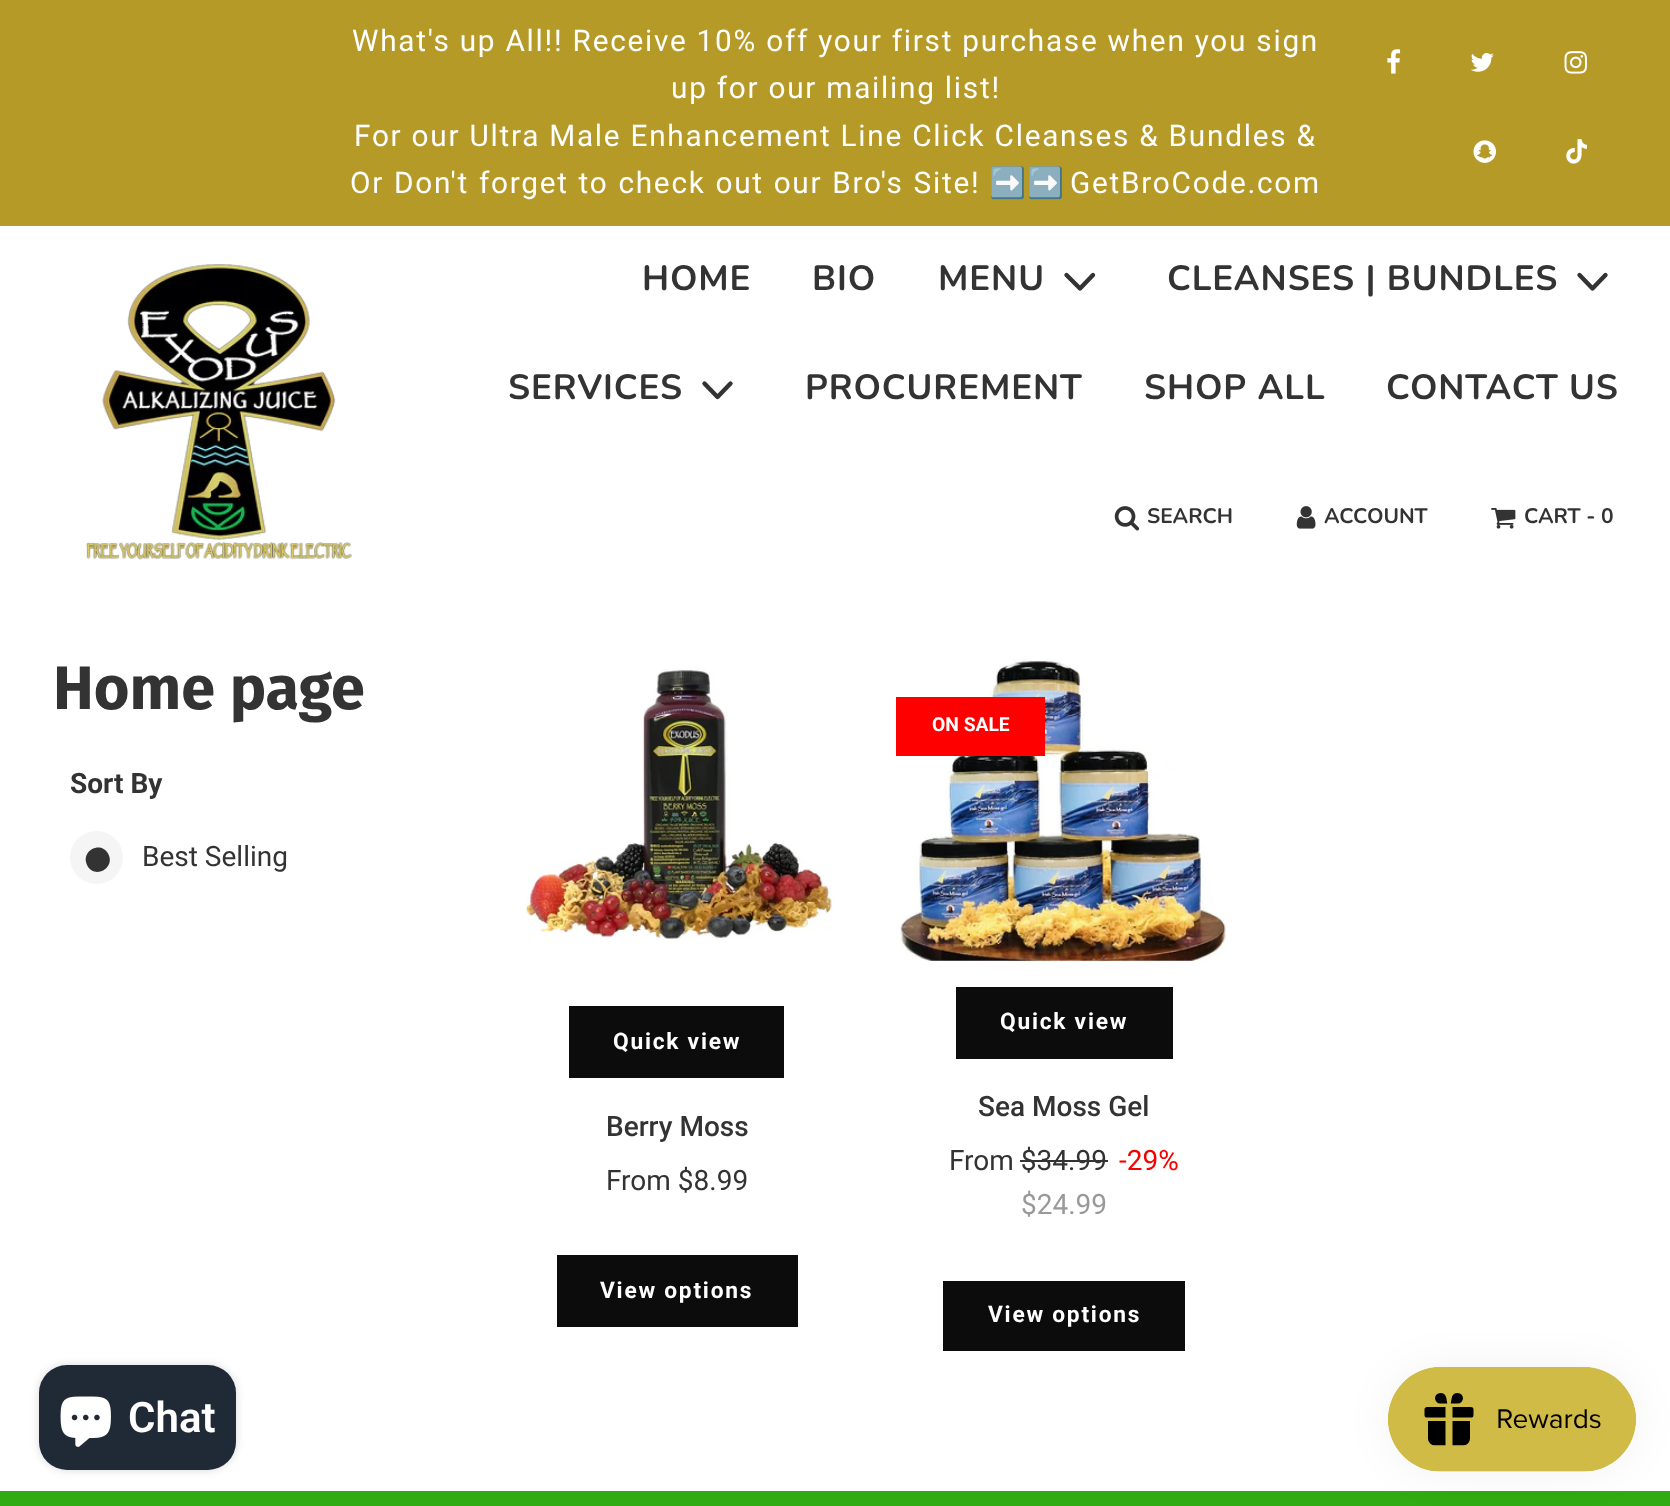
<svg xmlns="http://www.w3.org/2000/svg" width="1670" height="1506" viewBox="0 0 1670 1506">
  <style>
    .t1 { font: 29.75px Roboto; letter-spacing: 1.75px; fill: #fff; }
    .t2 { font: 29.75px Noto Color Emoji; letter-spacing: 1.75px; fill: #fff; }
    .t3 { font: bold 35px Nunito; letter-spacing: 0.9px; fill: #333; }
    .t4 { font: bold 21px Nunito; fill: #333; }
    .t5 { font: bold 61.25px Fira Sans; fill: #333; }
    .t6 { font: bold 28px Roboto; fill: #333; }
    .t7 { font: 28px Roboto; fill: #333; }
    .t8 { font: bold 22.75px Roboto; letter-spacing: 1.75px; fill: #fff; }
    .t9 { font: 500 28px Roboto; fill: #333; }
    .t10 { font: bold 19.25px Roboto; fill: #fff; }
    .t11 { font: 28px Roboto; fill: #f70000; }
    .t12 { font: 28px Roboto; fill: #999; }
    .t13 { font: 600 42px Roboto; fill: #fff; }
  </style>
  <rect width="100%" height="100%" fill="#fff"/>
  <rect x="0" y="0" width="1670" height="226" fill="#b69a27"/>
  <text x="352" y="51" class="t1">What's up All!! Receive 10% off your first purchase when you sign</text>
  <text x="671" y="98" class="t1">up for our mailing list!</text>
  <text x="354" y="146" class="t1">For our Ultra Male Enhancement Line Click Cleanses &amp; Bundles &amp;</text>
  <text x="350" y="193" word-spacing="0.75" class="t1">Or Don't forget to check out our Bro's Site!</text>
  <text x="989" y="193" class="t2">➡️➡️</text>
  <text x="1070" y="193" class="t1">GetBroCode.com</text>
  <image x="1387" y="49" width="14" height="25" href="images/1.png"/>
  <image x="1470" y="53" width="24" height="19" href="images/2.png"/>
  <image x="1564" y="51" width="23" height="23" href="images/3.png"/>
  <image x="1473" y="140" width="23" height="23" href="images/4.png"/>
  <image x="1566" y="139" width="21" height="25" href="images/5.png"/>
  <image x="85" y="264" width="267" height="296" href="images/6.png"/>
  <text x="642" y="290" class="t3">HOME</text>
  <text x="812" y="290" class="t3">BIO</text>
  <text x="938" y="290" class="t3">MENU</text>
  <path d="M1066.5 275L1080 288.5L1093 275" fill="none" stroke="#333" stroke-width="4.4" stroke-linecap="round" stroke-linejoin="round"/>
  <text x="1167" y="290" class="t3">CLEANSES | BUNDLES</text>
  <path d="M1579.5 275L1592.5 288.5L1605.5 275" fill="none" stroke="#333" stroke-width="4.4" stroke-linecap="round" stroke-linejoin="round"/>
  <text x="508" y="399" class="t3">SERVICES</text>
  <path d="M704.5 383.5L717.5 397L730.5 383.5" fill="none" stroke="#333" stroke-width="4.4" stroke-linecap="round" stroke-linejoin="round"/>
  <text x="805" y="399" class="t3">PROCUREMENT</text>
  <text x="1144" y="399" class="t3">SHOP ALL</text>
  <text x="1386" y="399" class="t3">CONTACT US</text>
  <image x="1114" y="506" width="26" height="25" href="images/7.png"/>
  <text x="1147" y="523" class="t4">SEARCH</text>
  <image x="1296" y="506" width="20" height="23" href="images/8.png"/>
  <text x="1324" y="523" class="t4">ACCOUNT</text>
  <image x="1491" y="508" width="25" height="21" href="images/9.png"/>
  <text x="1524" y="523" class="t4">CART - 0</text>
  <text x="53" y="709" class="t5">Home page</text>
  <text x="70" y="793" class="t6">Sort By</text>
  <circle cx="96.5" cy="857.5" r="26.5" fill="#f5f5f5"/>
  <path d="M108 853.5C116 867.5 95.5 879.5 87.5 866C79.5 852 100 840 108 853.5Z" fill="#333"/>
  <text x="142" y="866" class="t7">Best Selling</text>
  <image x="525" y="668" width="311" height="272" href="images/10.png"/>
  <rect x="569" y="1006" width="215" height="72" fill="#0d0c0c"/>
  <text x="613" y="1049" class="t8">Quick view</text>
  <text x="606" y="1136" class="t9">Berry Moss</text>
  <text x="606" y="1190" class="t7">From $8.99</text>
  <rect x="557" y="1255" width="241" height="72" fill="#0d0c0c"/>
  <text x="600" y="1298" class="t8">View options</text>
  <image x="900" y="659" width="327" height="302" href="images/11.png"/>
  <rect x="896" y="697" width="149" height="59" fill="#f00"/>
  <text x="932" y="731" class="t10">ON SALE</text>
  <rect x="956" y="987" width="217" height="72" fill="#0d0c0c"/>
  <text x="1000" y="1029" class="t8">Quick view</text>
  <text x="978" y="1116" class="t9">Sea Moss Gel</text>
  <text x="949" y="1170" class="t7">From $34.99</text>
  <text x="1119" y="1170" class="t11">-29%</text>
  <rect x="1020" y="1160" width="88" height="2" fill="#333"/>
  <text x="1021" y="1214" class="t12">$24.99</text>
  <rect x="943" y="1281" width="242" height="70" fill="#0d0c0c"/>
  <text x="988" y="1322" class="t8">View options</text>
  <rect x="39" y="1365" width="197" height="105" rx="28" fill="#00000026" filter="blur(4.5px)"/>
  <rect x="39" y="1365" width="197" height="105" rx="28" fill="#202a36"/>
  <image x="60" y="1396" width="51" height="51" href="images/12.png"/>
  <text x="128" y="1432" class="t13">Chat</text>
  <rect x="0" y="1491" width="1670" height="15" fill="#30ab11"/>
  <rect x="1388" y="1367" width="248" height="105" rx="52.5" fill="#0000000d" filter="blur(22px)"/>
  <image x="1388" y="1367" width="248" height="105" href="images/13.png"/>
</svg>
